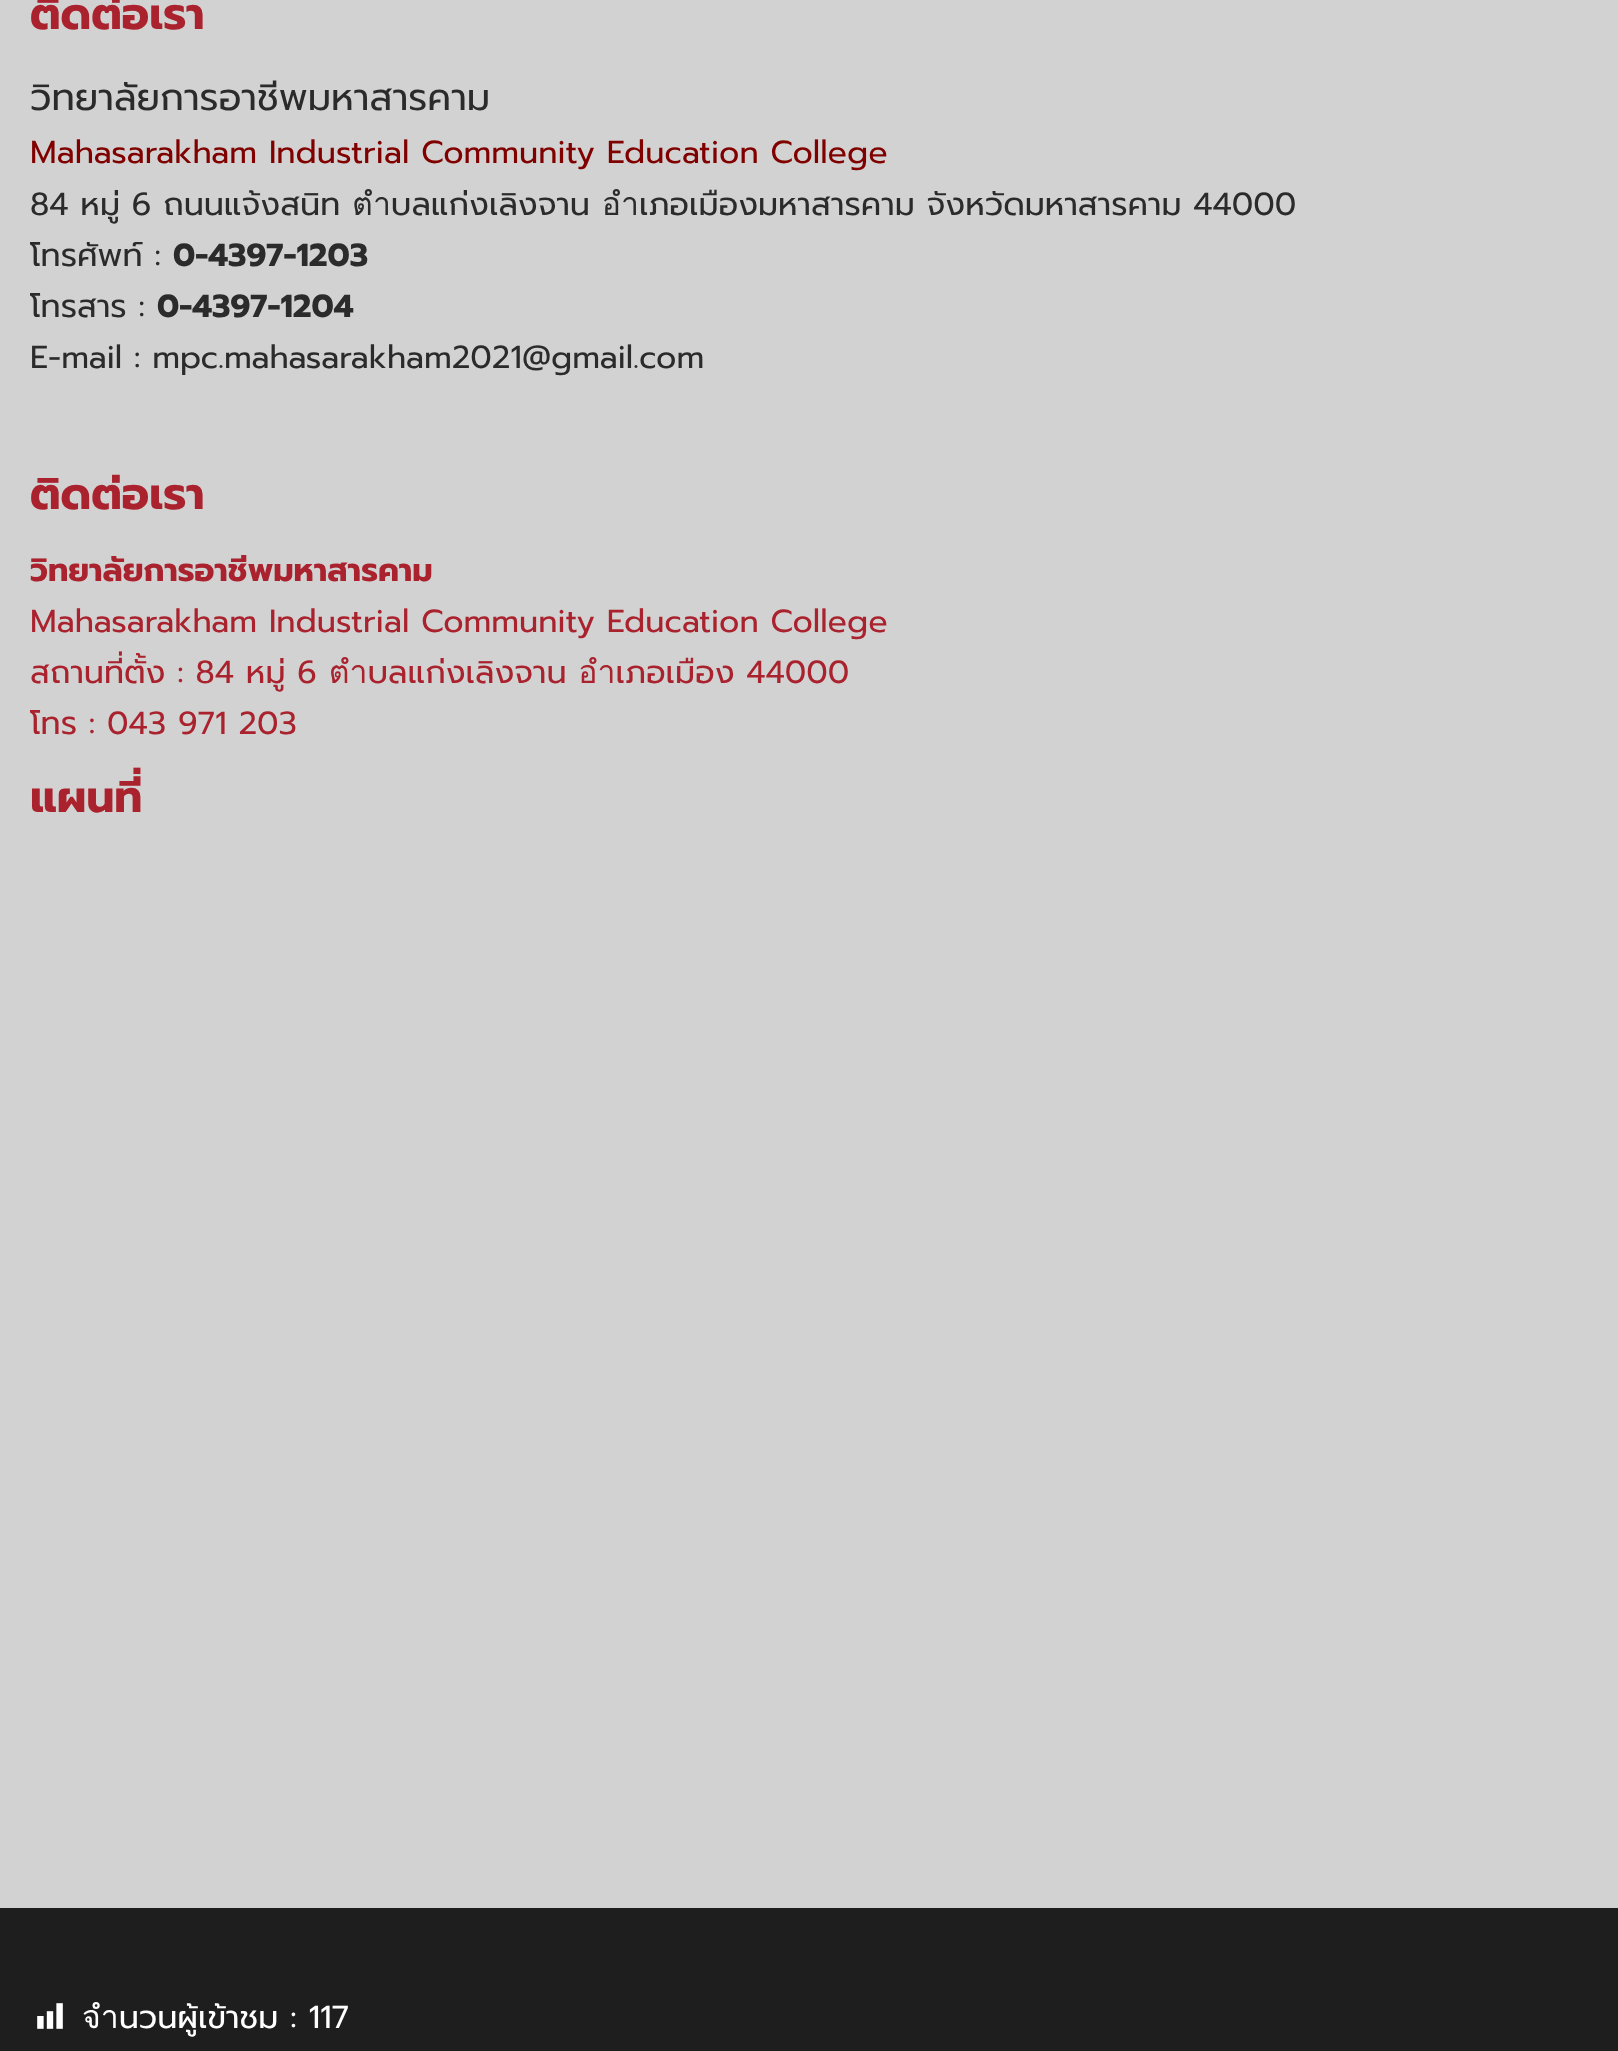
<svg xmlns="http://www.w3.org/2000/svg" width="1618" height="2051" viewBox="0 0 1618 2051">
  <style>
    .t1 { font: bold 44px Prompt; fill: #a9222d; }
    .t2 { font: 37.25px Prompt; fill: #2b2b2b; }
    .t3 { font: 32px Prompt; fill: #800000; }
    .t4 { font: 32px Prompt; fill: #2b2b2b; }
    .t5 { font: bold 32px Prompt; fill: #2b2b2b; }
    .t6 { font: bold 32px Prompt; fill: #a9222d; }
    .t7 { font: 32px Prompt; fill: #a9222d; }
    .t8 { font: 32px Prompt; fill: #fff; }
  </style>
  <rect width="100%" height="100%" fill="#d2d2d2"/>
  <text x="30" y="29" class="t1">ติดต่อเรา</text>
  <text x="30" y="110" class="t2">วิทยาลัยการอาชีพมหาสารคาม</text>
  <text x="30" y="163" class="t3">Mahasarakham Industrial Community Education College</text>
  <text x="30" y="215" class="t4">84 หมู่ 6 ถนนแจ้งสนิท ตำบลแก่งเลิงจาน อำเภอเมืองมหาสารคาม จังหวัดมหาสารคาม 44000</text>
  <text x="30" y="266" class="t4">โทรศัพท์ :</text>
  <text x="173" y="266" class="t5">0-4397-1203</text>
  <text x="30" y="317" class="t4">โทรสาร :</text>
  <text x="157" y="317" class="t5">0-4397-1204</text>
  <text x="30" y="368" class="t4">E-mail : mpc.mahasarakham2021@gmail.com</text>
  <text x="30" y="509" class="t1">ติดต่อเรา</text>
  <text x="30" y="581" class="t6">วิทยาลัยการอาชีพมหาสารคาม</text>
  <text x="30" y="632" class="t7">Mahasarakham Industrial Community Education College</text>
  <text x="30" y="683" class="t7">สถานที่ตั้ง : 84 หมู่ 6 ตำบลแก่งเลิงจาน อำเภอเมือง 44000</text>
  <text x="30" y="734" class="t7">โทร : 043 971 203</text>
  <text x="30" y="812" class="t1">แผนที่</text>
  <rect x="0" y="1908" width="1618" height="143" fill="#1e1e1e"/>
  <image x="37" y="2003" width="26" height="26" href="images/1.png"/>
  <text x="82" y="2028" class="t8">จำนวนผู้เข้าชม : 117</text>
</svg>
